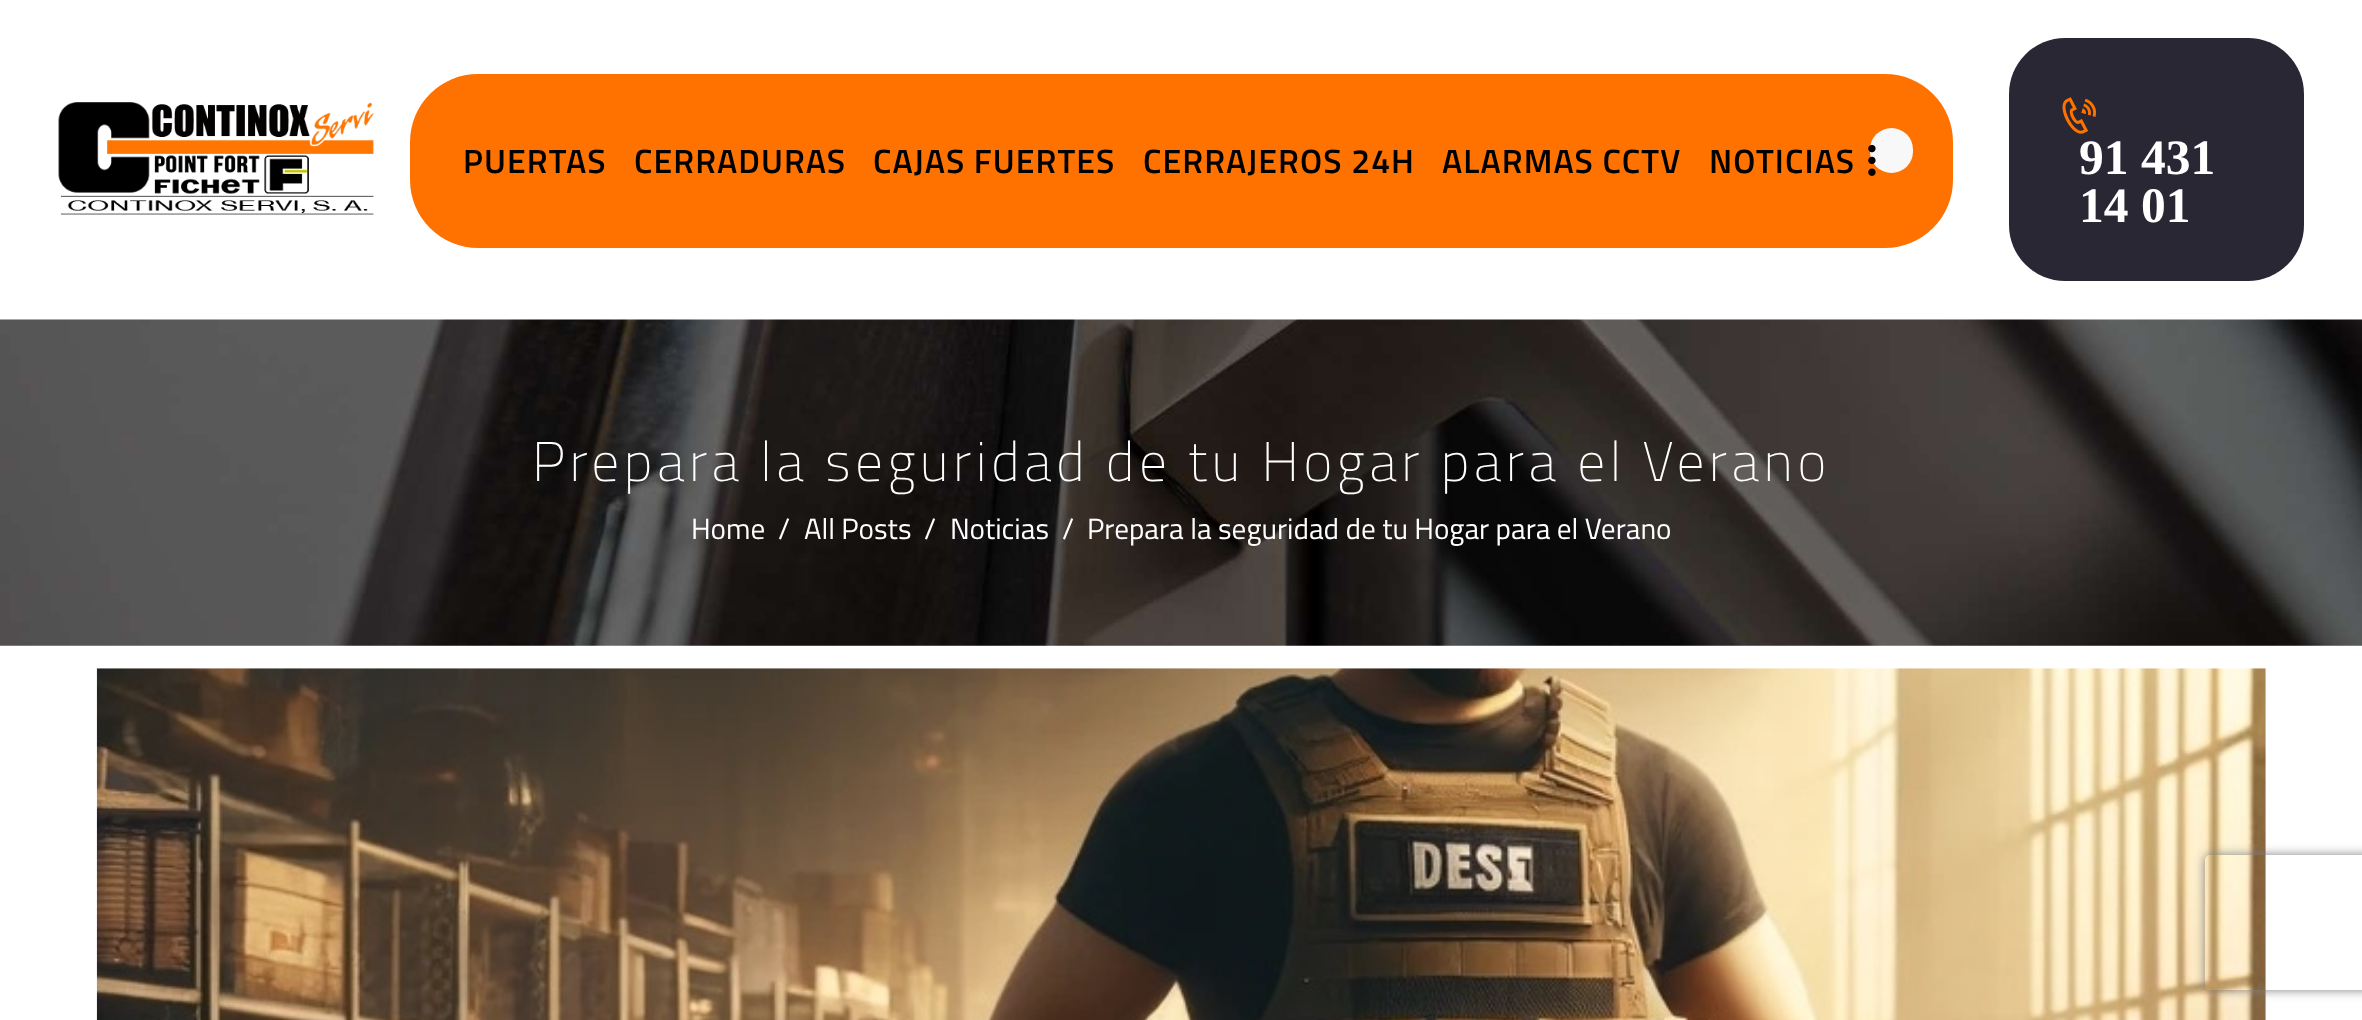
<svg xmlns="http://www.w3.org/2000/svg" width="2362" height="1020" viewBox="0 0 2362 1020">
  <style>
    .t1 { font: 600 33.75px Titillium Web; letter-spacing: 1.1px; fill: #000; }
    .t2 { font: bold 49.5px Liberation Serif; fill: #fff; }
    .t3 { font: 100 55.6px Titillium Web; letter-spacing: 4.5px; fill: #fff; }
    .t4 { font: 29.25px Titillium Web; fill: #fff; }
  </style>
  <defs>
    <clipPath id="clip1"><path d="M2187 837H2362V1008H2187ZM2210 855H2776C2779 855 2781 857 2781 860V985C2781 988 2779 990 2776 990H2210C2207 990 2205 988 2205 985V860C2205 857 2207 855 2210 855Z" clip-rule="evenodd"/></clipPath>
  </defs>
  <rect width="100%" height="100%" fill="#fff"/>
  <image x="58" y="102" width="316" height="113" href="images/1.png"/>
  <rect x="410" y="74" width="1543" height="174" rx="68" fill="#ff7200"/>
  <text x="463" y="173" class="t1">PUERTAS</text>
  <text x="634" y="173" class="t1">CERRADURAS</text>
  <text x="873" y="173" class="t1">CAJAS FUERTES</text>
  <text x="1143" y="173" class="t1">CERRAJEROS 24H</text>
  <text x="1442" y="173" class="t1">ALARMAS CCTV</text>
  <text x="1709" y="173" class="t1">NOTICIAS</text>
  <rect x="1870" y="128" width="43" height="45" rx="21.5" fill="#f8f8f8"/>
  <image x="1868" y="144" width="8" height="32" href="images/2.png"/>
  <rect x="2009" y="38" width="295" height="243" rx="56" fill="#292734"/>
  <image x="2062" y="97" width="34" height="37" href="images/3.png"/>
  <text x="2079" y="174" class="t2">91 431</text>
  <text x="2079" y="222" class="t2">14 01</text>
  <image x="0" y="319" width="2362" height="327" href="images/4.png"/>
  <text x="532" y="481" class="t3">Prepara la seguridad de tu Hogar para el Verano</text>
  <text x="691" y="539" class="t4">Home</text>
  <text x="778" y="539" class="t4">/</text>
  <text x="804" y="539" class="t4">All Posts</text>
  <text x="924" y="539" class="t4">/</text>
  <text x="950" y="539" class="t4">Noticias</text>
  <text x="1062" y="539" class="t4">/</text>
  <text x="1087" y="539" class="t4">Prepara la seguridad de tu Hogar para el Verano</text>
  <image x="96" y="668" width="2170" height="352" href="images/5.png"/>
  <g clip-path="url(#clip1)">
    <rect x="2205" y="855" width="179" height="135" rx="5" fill="#808080" filter="blur(5.5px)"/>
  </g>
</svg>
